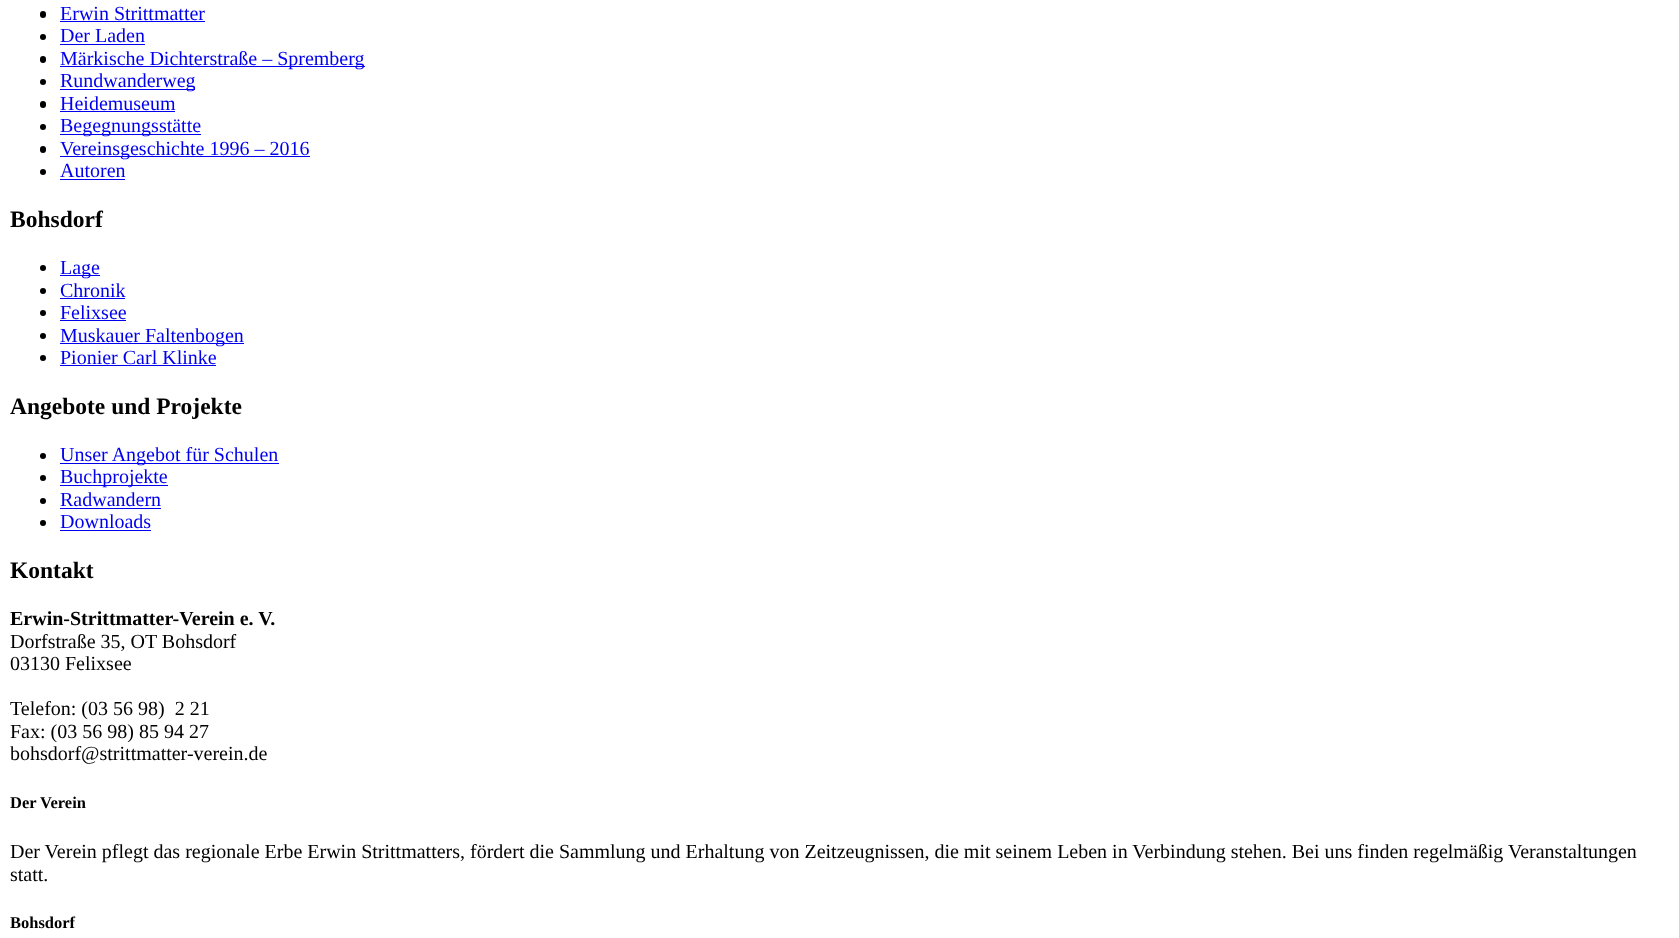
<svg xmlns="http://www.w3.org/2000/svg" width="1679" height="938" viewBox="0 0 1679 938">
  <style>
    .t1 { font: 20px Liberation Serif; fill: #00e; }
    .t2 { font: bold 23.5px Liberation Serif; fill: #000; }
    .t3 { font: bold 20px Liberation Serif; fill: #000; }
    .t4 { font: 20px Liberation Serif; fill: #000; }
    .t5 { font: bold 16.5px Liberation Serif; fill: #000; }
  </style>
  <rect width="100%" height="100%" fill="#fff"/>
  <rect x="40" y="11" width="6" height="7" rx="3" fill="#000"/>
  <text x="60" y="20" class="t1">Erwin Strittmatter</text>
  <rect x="60" y="21" width="145" height="1" fill="#00e"/>
  <circle cx="43" cy="37" r="3" fill="#000"/>
  <text x="60" y="42" class="t1">Der Laden</text>
  <rect x="60" y="44" width="85" height="1" fill="#00e"/>
  <rect x="40" y="56" width="6" height="7" rx="3" fill="#000"/>
  <rect x="60" y="66" width="305" height="1" fill="#00e"/>
  <text x="60" y="65" class="t1">Märkische Dichterstraße – Spremberg</text>
  <circle cx="43" cy="82" r="3" fill="#000"/>
  <rect x="60" y="89" width="135" height="1" fill="#00e"/>
  <text x="60" y="87" class="t1">Rundwanderweg</text>
  <rect x="40" y="101" width="6" height="7" rx="3" fill="#000"/>
  <text x="60" y="110" class="t1">Heidemuseum</text>
  <rect x="60" y="111" width="115" height="1" fill="#00e"/>
  <circle cx="43" cy="127" r="3" fill="#000"/>
  <rect x="60" y="134" width="141" height="1" fill="#00e"/>
  <text x="60" y="132" class="t1">Begegnungsstätte</text>
  <rect x="40" y="146" width="6" height="7" rx="3" fill="#000"/>
  <rect x="60" y="156" width="250" height="1" fill="#00e"/>
  <text x="60" y="155" class="t1">Vereinsgeschichte 1996 – 2016</text>
  <circle cx="43" cy="172" r="3" fill="#000"/>
  <text x="60" y="177" class="t1">Autoren</text>
  <rect x="60" y="179" width="65" height="1" fill="#00e"/>
  <text x="10" y="227" class="t2">Bohsdorf</text>
  <circle cx="43" cy="268" r="3" fill="#000"/>
  <rect x="60" y="275" width="40" height="1" fill="#00e"/>
  <text x="60" y="274" class="t1">Lage</text>
  <circle cx="43" cy="291" r="3" fill="#000"/>
  <text x="60" y="297" class="t1">Chronik</text>
  <rect x="60" y="298" width="65" height="1" fill="#00e"/>
  <circle cx="43" cy="313" r="3" fill="#000"/>
  <text x="60" y="319" class="t1">Felixsee</text>
  <rect x="60" y="320" width="66" height="1" fill="#00e"/>
  <circle cx="43" cy="336" r="3" fill="#000"/>
  <rect x="60" y="343" width="184" height="1" fill="#00e"/>
  <text x="60" y="342" class="t1">Muskauer Faltenbogen</text>
  <circle cx="43" cy="358" r="3" fill="#000"/>
  <text x="60" y="364" class="t1">Pionier Carl Klinke</text>
  <rect x="60" y="365" width="156" height="1" fill="#00e"/>
  <text x="10" y="414" class="t2">Angebote und Projekte</text>
  <circle cx="43" cy="456" r="3" fill="#000"/>
  <rect x="60" y="463" width="219" height="1" fill="#00e"/>
  <text x="60" y="461" class="t1">Unser Angebot für Schulen</text>
  <circle cx="43" cy="478" r="3" fill="#000"/>
  <rect x="60" y="485" width="108" height="1" fill="#00e"/>
  <text x="60" y="483" class="t1">Buchprojekte</text>
  <circle cx="43" cy="501" r="3" fill="#000"/>
  <text x="60" y="506" class="t1">Radwandern</text>
  <rect x="60" y="508" width="101" height="1" fill="#00e"/>
  <circle cx="43" cy="523" r="3" fill="#000"/>
  <text x="60" y="528" class="t1">Downloads</text>
  <rect x="60" y="530" width="91" height="1" fill="#00e"/>
  <text x="10" y="578" class="t2">Kontakt</text>
  <text x="10" y="625" class="t3">Erwin-Strittmatter-Verein e. V.</text>
  <text x="10" y="648" class="t4">Dorfstraße 35, OT Bohsdorf</text>
  <text x="10" y="670" class="t4">03130 Felixsee</text>
  <text x="10" y="715" class="t4" xml:space="preserve">Telefon: (03 56 98)  2 21</text>
  <text x="10" y="738" class="t4">Fax: (03 56 98) 85 94 27</text>
  <text x="10" y="760" class="t4">bohsdorf@strittmatter-verein.de</text>
  <text x="10" y="808" class="t5">Der Verein</text>
  <text x="10" y="858" class="t4">Der Verein pflegt das regionale Erbe Erwin Strittmatters, fördert die Sammlung und Erhaltung von Zeitzeugnissen, die mit seinem Leben in Verbindung stehen. Bei uns finden regelmäßig Veranstaltungen</text>
  <text x="10" y="881" class="t4">statt.</text>
  <text x="10" y="928" class="t5">Bohsdorf</text>
</svg>
